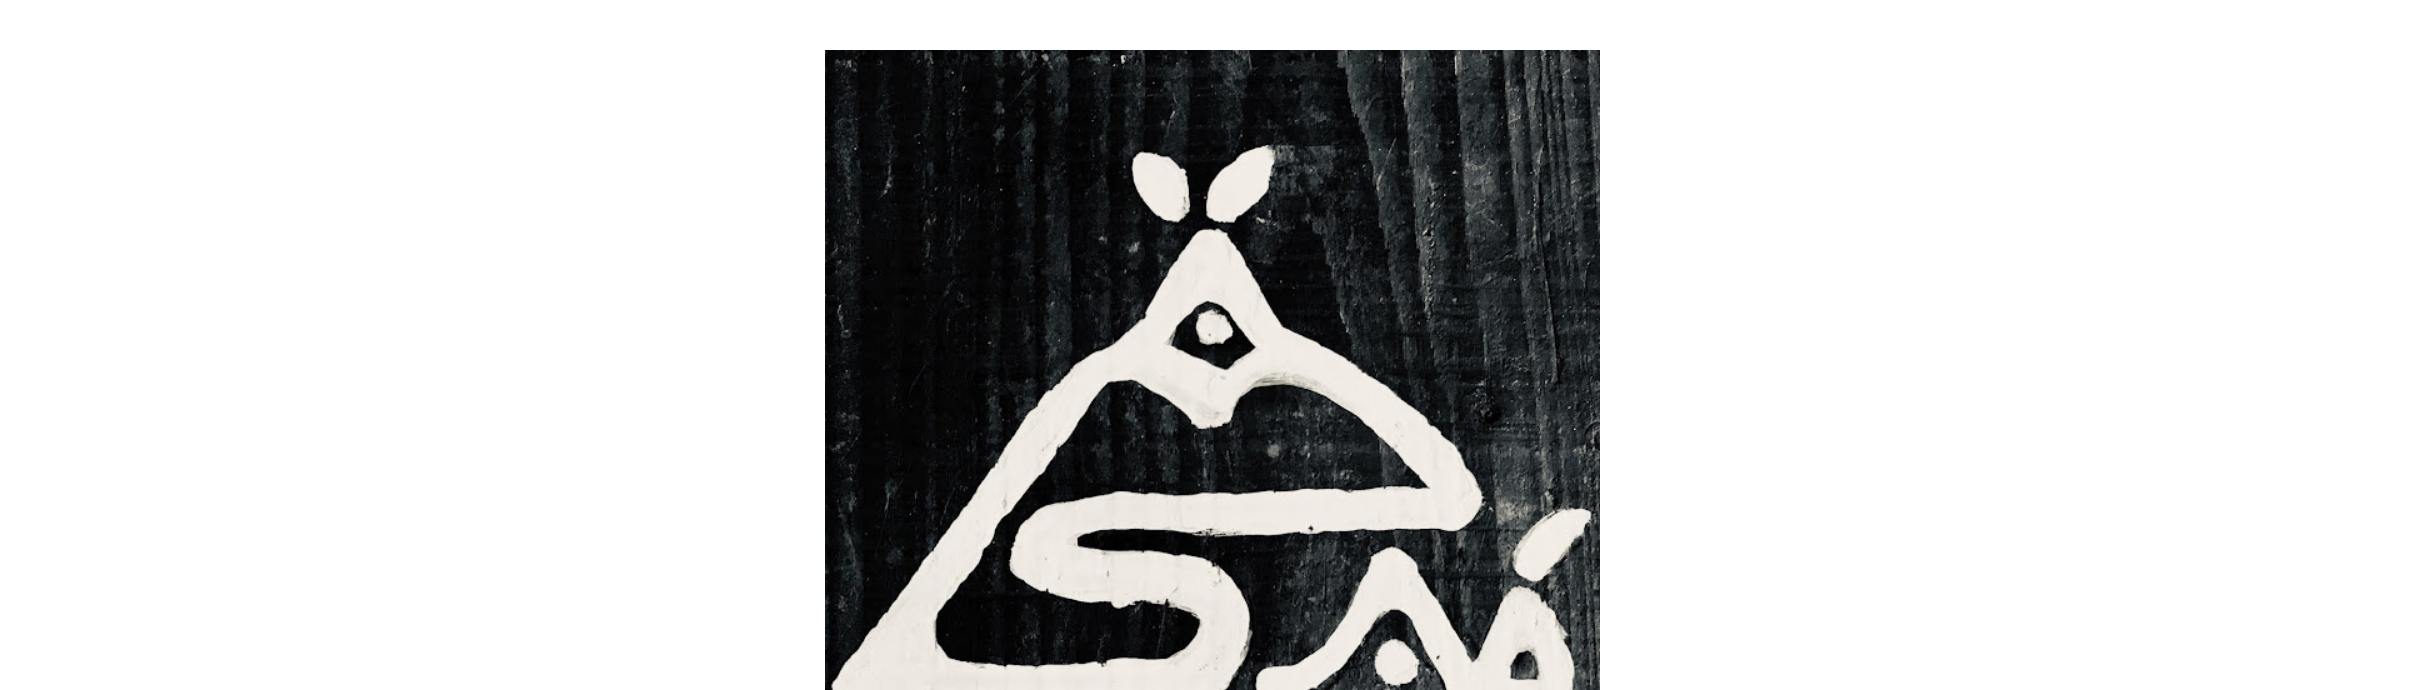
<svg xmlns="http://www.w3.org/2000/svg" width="2423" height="690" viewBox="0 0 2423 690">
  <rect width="100%" height="100%" fill="#fff"/>
  <image x="825" y="50" width="775" height="640" href="images/1.png"/>
</svg>
